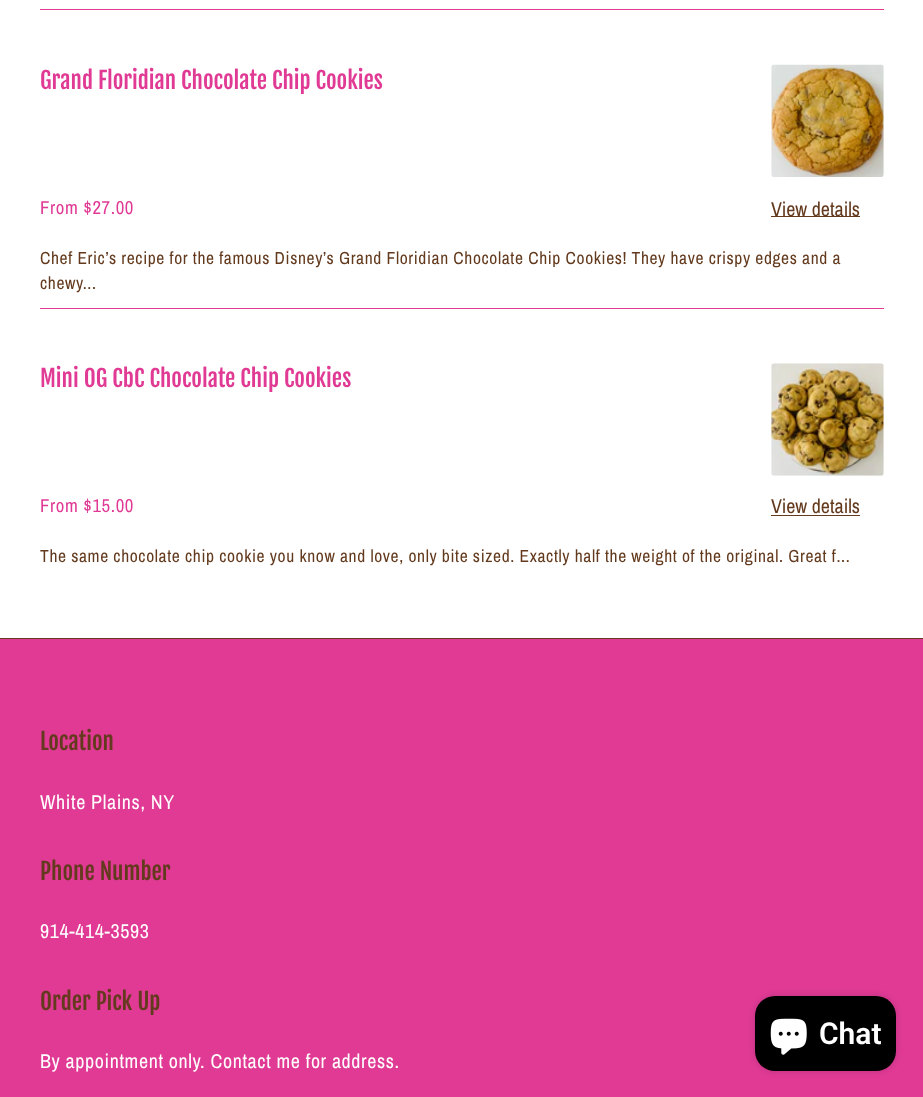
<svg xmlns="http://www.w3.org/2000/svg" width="923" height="1097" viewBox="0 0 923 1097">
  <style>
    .t1 { font: 23px Fjalla One; fill: #e03a95; }
    .t2 { font: 18.75px Archivo Narrow; letter-spacing: 0.62px; fill: #e03a95; }
    .t3 { font: 20px Archivo Narrow; fill: #633a1d; }
    .t4 { font: 17.5px Archivo Narrow; letter-spacing: 0.62px; fill: #633a1d; }
    .t5 { font: 23px Fjalla One; fill: #633a1d; }
    .t6 { font: 20px Archivo Narrow; letter-spacing: 0.62px; fill: #fff; }
    .t7 { font: 600 30px Roboto; fill: #fff; }
  </style>
  <rect width="100%" height="100%" fill="#fff"/>
  <rect x="40" y="9" width="844" height="1" fill="#e03a95"/>
  <text x="40" y="89" class="t1">Grand Floridian Chocolate Chip Cookies</text>
  <image x="771" y="64" width="113" height="113" href="images/1.png"/>
  <text x="40" y="214" class="t2">From $27.00</text>
  <rect x="771" y="216" width="89" height="1" fill="#633a1d"/>
  <text x="771" y="216" class="t3">View details</text>
  <text x="40" y="264" class="t4">Chef Eric’s recipe for the famous Disney’s Grand Floridian Chocolate Chip Cookies! They have crispy edges and a</text>
  <text x="40" y="289" class="t4">chewy...</text>
  <rect x="40" y="308" width="844" height="1" fill="#e03a95"/>
  <text x="40" y="387" class="t1">Mini OG CbC Chocolate Chip Cookies</text>
  <image x="771" y="363" width="113" height="113" href="images/2.png"/>
  <text x="40" y="512" class="t2">From $15.00</text>
  <text x="771" y="513" class="t3">View details</text>
  <rect x="771" y="515" width="89" height="1" fill="#633a1d"/>
  <text x="40" y="562" class="t4">The same chocolate chip cookie you know and love, only bite sized. Exactly half the weight of the original. Great f...</text>
  <rect x="0" y="639" width="923" height="458" fill="#e03a95"/>
  <rect x="0" y="638" width="923" height="1" fill="#633a1d"/>
  <text x="40" y="750" class="t5">Location</text>
  <text x="40" y="809" class="t6">White Plains, NY</text>
  <text x="40" y="880" class="t5">Phone Number</text>
  <text x="40" y="938" class="t6">914-414-3593</text>
  <text x="40" y="1010" class="t5">Order Pick Up</text>
  <text x="40" y="1068" class="t6">By appointment only. Contact me for address.</text>
  <rect x="755" y="996" width="141" height="75" rx="20" fill="#00000026" filter="blur(3px)"/>
  <rect x="755" y="996" width="141" height="75" rx="20" fill="#000"/>
  <image x="770" y="1018" width="37" height="37" href="images/3.png"/>
  <text x="819" y="1044" class="t7">Chat</text>
</svg>
